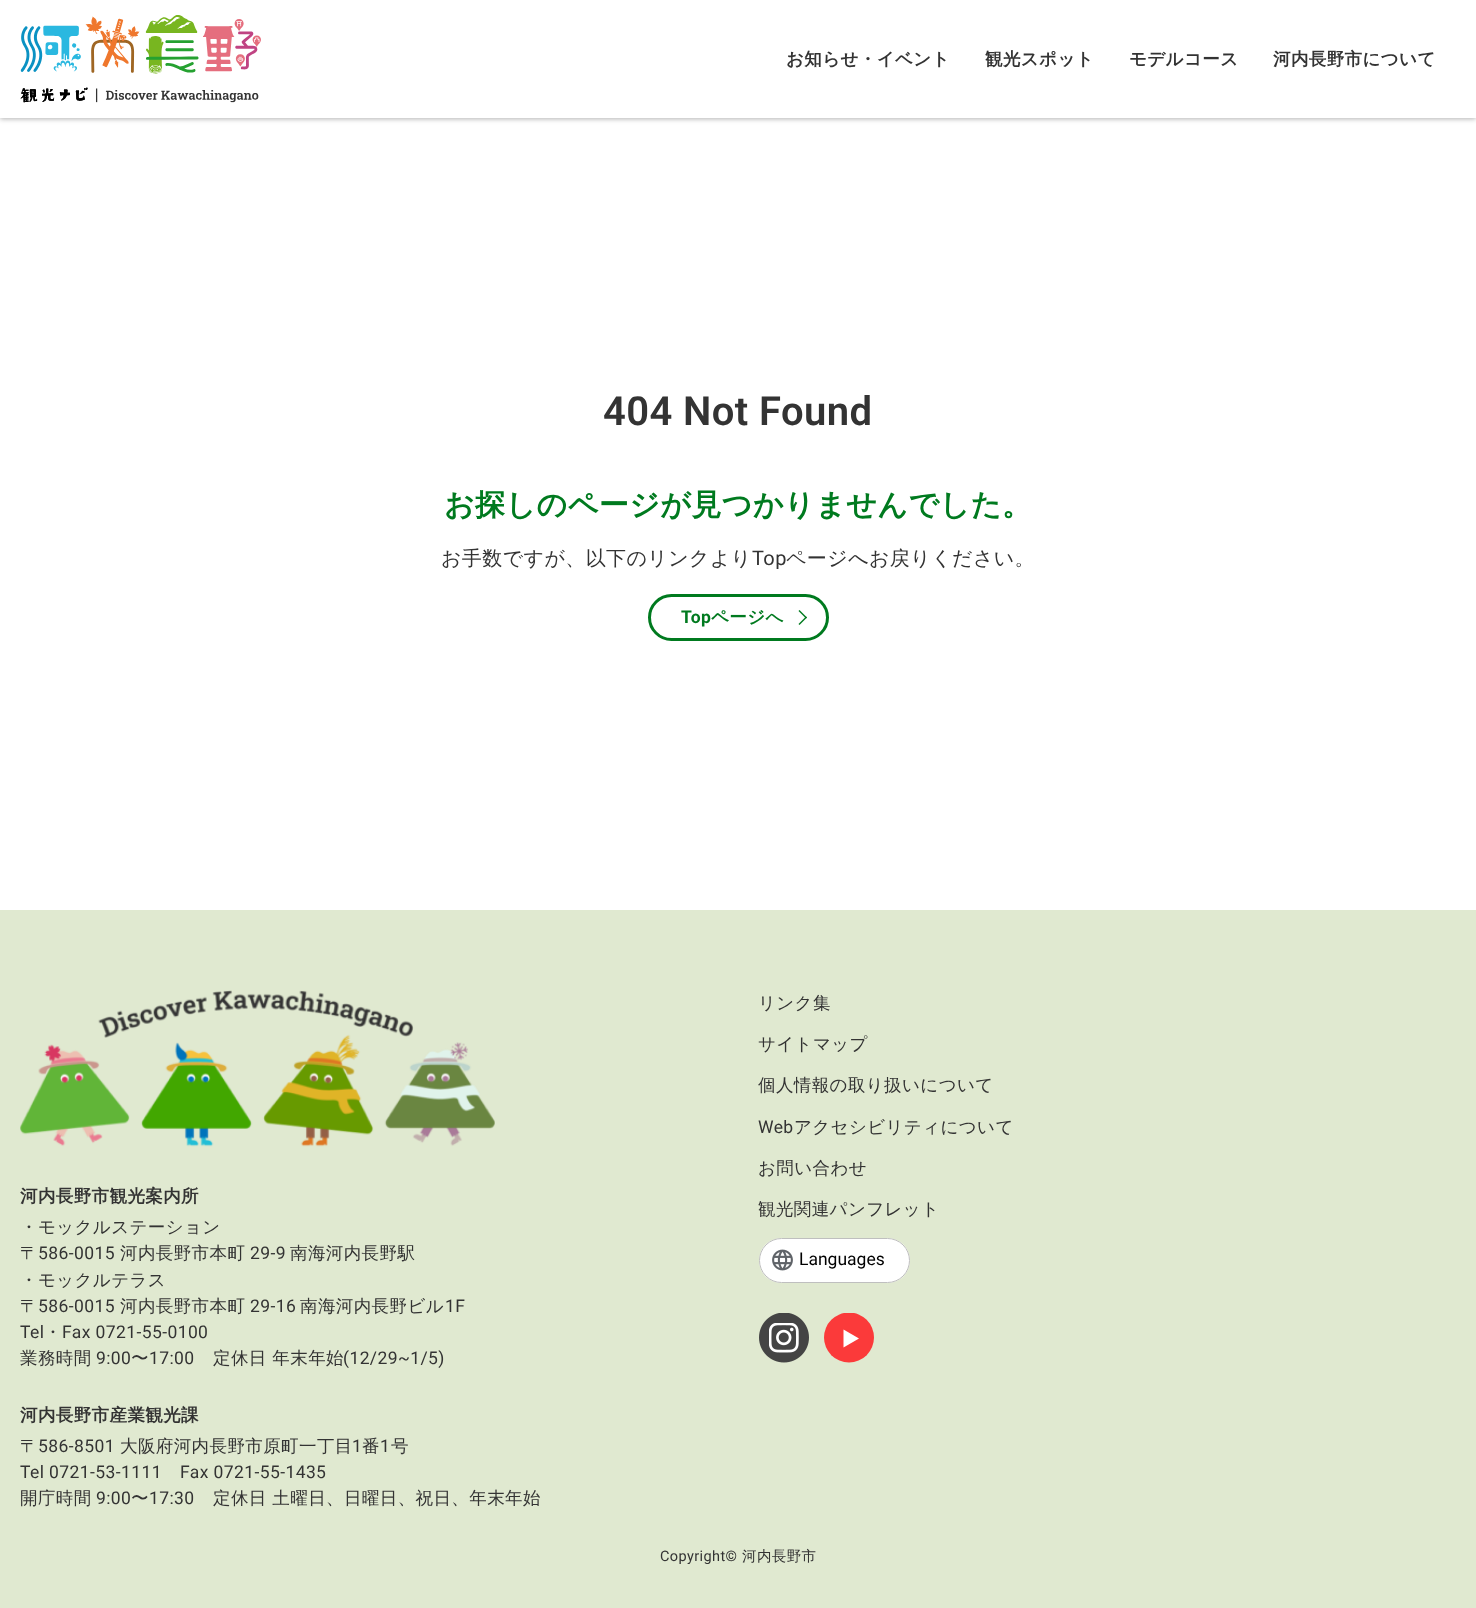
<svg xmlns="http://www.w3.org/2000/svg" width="1476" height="1608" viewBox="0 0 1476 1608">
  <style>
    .t1 { font: bold 17.5px WenQuanYi Zen Hei; letter-spacing: 0.4px; fill: #333; }
    .t2 { font: 600 40px Roboto; letter-spacing: 0.4px; fill: #333; }
    .t3 { font: bold 30px WenQuanYi Zen Hei; letter-spacing: 0.4px; fill: #007a1f; }
    .t4 { font: 500 20px WenQuanYi Zen Hei; letter-spacing: 0.4px; fill: #333; }
    .t5 { font: 20px Roboto; letter-spacing: 0.4px; fill: #333; }
    .t6 { font: bold 17.5px Roboto; letter-spacing: 0.4px; fill: #007a1f; }
    .t7 { font: bold 17.5px WenQuanYi Zen Hei; letter-spacing: 0.4px; fill: #007a1f; }
    .t8 { font: 500 17.5px WenQuanYi Zen Hei; letter-spacing: 0.4px; fill: #333; }
    .t9 { font: 17.5px Roboto; letter-spacing: 0.4px; fill: #333; }
    .t10 { font: 17.5px Roboto; fill: #000; }
    .t11 { font: 14.5px Roboto; letter-spacing: 0.4px; fill: #333; }
    .t12 { font: 500 14.5px WenQuanYi Zen Hei; letter-spacing: 0.4px; fill: #333; }
  </style>
  <defs>
    <clipPath id="clip1"><path d="M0 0H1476V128H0ZM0 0H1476V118H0Z" clip-rule="evenodd"/></clipPath>
    <clipPath id="clip2"><rect x="824" y="1313" width="50" height="50"/></clipPath>
  </defs>
  <rect width="100%" height="100%" fill="#fff"/>
  <g clip-path="url(#clip1)">
    <rect x="0" y="1" width="1476" height="118" fill="#0000004d" filter="blur(2.5px)"/>
  </g>
  <rect x="0" y="117" width="1476" height="1" fill="#ffffffcc"/>
  <image x="20" y="15" width="241" height="88" href="images/1.png"/>
  <text x="786" y="65" class="t1">お知らせ・イベント</text>
  <text x="985" y="65" class="t1">観光スポット</text>
  <text x="1129" y="65" class="t1">モデルコース</text>
  <text x="1273" y="65" class="t1">河内長野市について</text>
  <text x="603" y="425" class="t2">404 Not Found</text>
  <text x="444" y="515" class="t3">お探しのページが見つかりませんでした。</text>
  <text x="441" y="565" class="t4">お手数ですが、以下のリンクより</text>
  <text x="752" y="565" class="t5">Top</text>
  <text x="786" y="565" class="t4">ページへお戻りください。</text>
  <rect x="649.5" y="595.5" width="178" height="44" rx="22" fill="none" stroke="#007a1f" stroke-width="3"/>
  <text x="681" y="623" class="t6">Top</text>
  <text x="711" y="623" class="t7">ページへ</text>
  <path d="M799.5 610L807 617.5L806 618.5L798.5 611Z" fill="#007a1f"/>
  <path d="M806 616.5L807 617.5L799.5 625L798.5 624Z" fill="#007a1f"/>
  <rect x="0" y="910" width="1476" height="698" fill="#e0e9d0"/>
  <text x="758" y="1009" class="t8">リンク集</text>
  <text x="758" y="1050" class="t8">サイトマップ</text>
  <text x="758" y="1091" class="t8">個人情報の取り扱いについて</text>
  <text x="758" y="1133" class="t9">Web</text>
  <text x="794" y="1133" class="t8">アクセシビリティについて</text>
  <text x="758" y="1174" class="t8">お問い合わせ</text>
  <text x="758" y="1215" class="t8">観光関連パンフレット</text>
  <rect x="759" y="1238" width="151" height="45" rx="22.5" fill="#fff"/>
  <image x="772" y="1249" width="21" height="22" href="images/2.png"/>
  <rect x="759.5" y="1238.5" width="150" height="44" rx="22" fill="none" stroke="#bfbfbf"/>
  <text x="799" y="1265" class="t10">Languages</text>
  <image x="759" y="1313" width="50" height="50" href="images/3.png"/>
  <g clip-path="url(#clip2)">
    <circle cx="849" cy="1337.5" r="25" fill="#fb3a3a"/>
  </g>
  <path d="M859 1338.5L843.5 1347.5V1329.5Z" fill="#fff"/>
  <image x="20" y="990" width="475" height="157" href="images/4.png"/>
  <text x="20" y="1202" class="t1">河内長野市観光案内所</text>
  <text x="20" y="1233" class="t8">・モックルステーション</text>
  <text x="20" y="1259" class="t8">〒</text>
  <text x="38" y="1259" class="t9">586-0015</text>
  <text x="120" y="1259" class="t8">河内長野市本町</text>
  <text x="250" y="1259" class="t9">29-9</text>
  <text x="290" y="1259" class="t8">南海河内長野駅</text>
  <text x="20" y="1286" class="t8">・モックルテラス</text>
  <text x="20" y="1312" class="t8">〒</text>
  <text x="38" y="1312" class="t9">586-0015</text>
  <text x="120" y="1312" class="t8">河内長野市本町</text>
  <text x="250" y="1312" class="t9">29-16</text>
  <text x="300" y="1312" class="t8">南海河内長野ビル</text>
  <text x="445" y="1312" class="t9">1F</text>
  <text x="20" y="1338" class="t9">Tel</text>
  <text x="44" y="1338" class="t8">・</text>
  <text x="62" y="1338" class="t9">Fax 0721-55-0100</text>
  <text x="20" y="1364" class="t8">業務時間</text>
  <text x="96" y="1364" class="t9">9:00</text>
  <text x="131" y="1364" class="t8">〜</text>
  <text x="149" y="1364" class="t9">17:00</text>
  <text x="213" y="1364" class="t8">定休日 年末年始</text>
  <text x="343" y="1364" class="t9">(12/29~1/5)</text>
  <text x="20" y="1421" class="t1">河内長野市産業観光課</text>
  <text x="20" y="1452" class="t8">〒</text>
  <text x="38" y="1452" class="t9">586-8501</text>
  <text x="120" y="1452" class="t8">大阪府河内長野市原町一丁目</text>
  <text x="352" y="1452" class="t9">1</text>
  <text x="362" y="1452" class="t8">番</text>
  <text x="380" y="1452" class="t9">1</text>
  <text x="391" y="1452" class="t8">号</text>
  <text x="20" y="1478" class="t9">Tel 0721-53-1111</text>
  <text x="180" y="1478" class="t9">Fax 0721-55-1435</text>
  <text x="20" y="1504" class="t8">開庁時間</text>
  <text x="96" y="1504" class="t9">9:00</text>
  <text x="131" y="1504" class="t8">〜</text>
  <text x="149" y="1504" class="t9">17:30</text>
  <text x="213" y="1504" class="t8">定休日 土曜日、日曜日、祝日、年末年始</text>
  <text x="660" y="1561" class="t11">Copyright©</text>
  <text x="742" y="1561" class="t12">河内長野市</text>
</svg>
